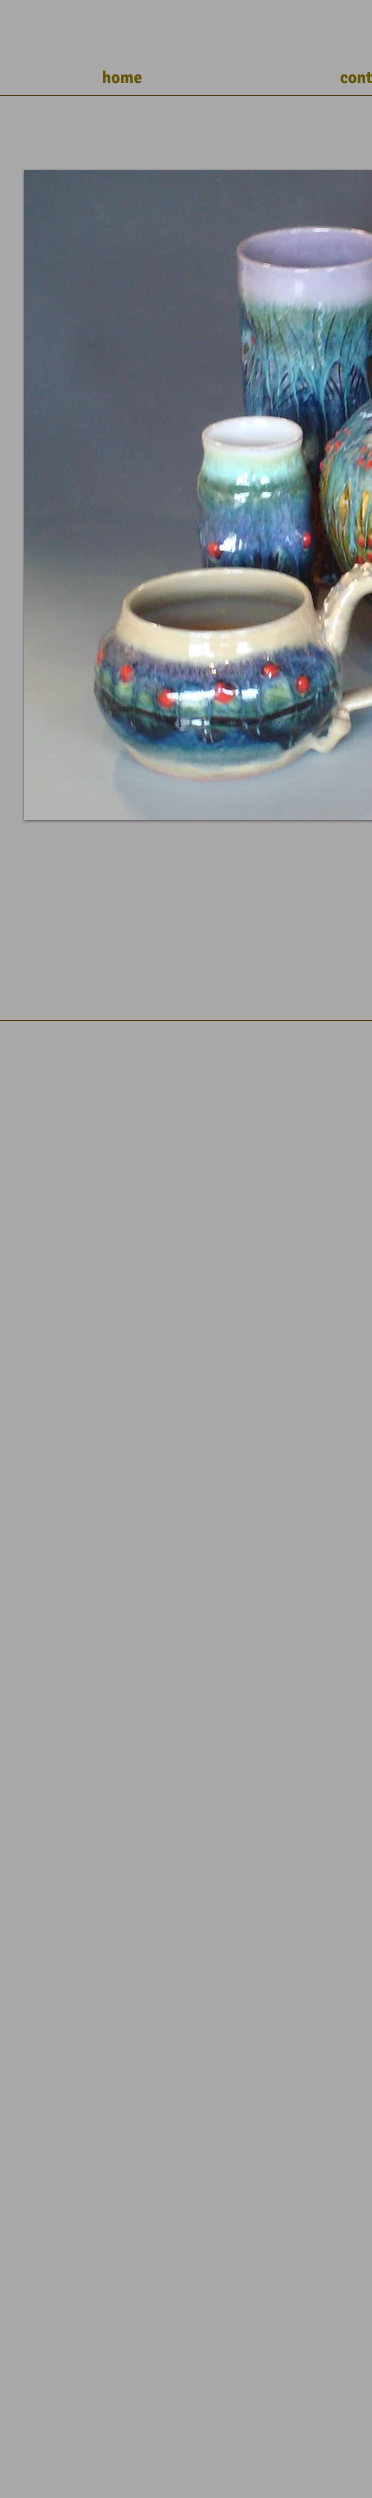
<svg xmlns="http://www.w3.org/2000/svg" width="372" height="2498" viewBox="0 0 372 2498">
  <style>
    .t1 { font: bold 17px Signika; fill: #665708; }
  </style>
  <rect width="100%" height="100%" fill="#a9a9a9"/>
  <text x="102" y="83" class="t1">home</text>
  <text x="340" y="83" class="t1">cont</text>
  <rect x="0" y="95" width="372" height="1" fill="#4f3900"/>
  <rect x="24" y="171" width="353" height="650" fill="#00000080" filter="blur(1.5px)"/>
  <image x="24" y="170" width="348" height="650" href="images/1.png"/>
  <rect x="0" y="1020" width="372" height="1" fill="#4f3900"/>
</svg>
